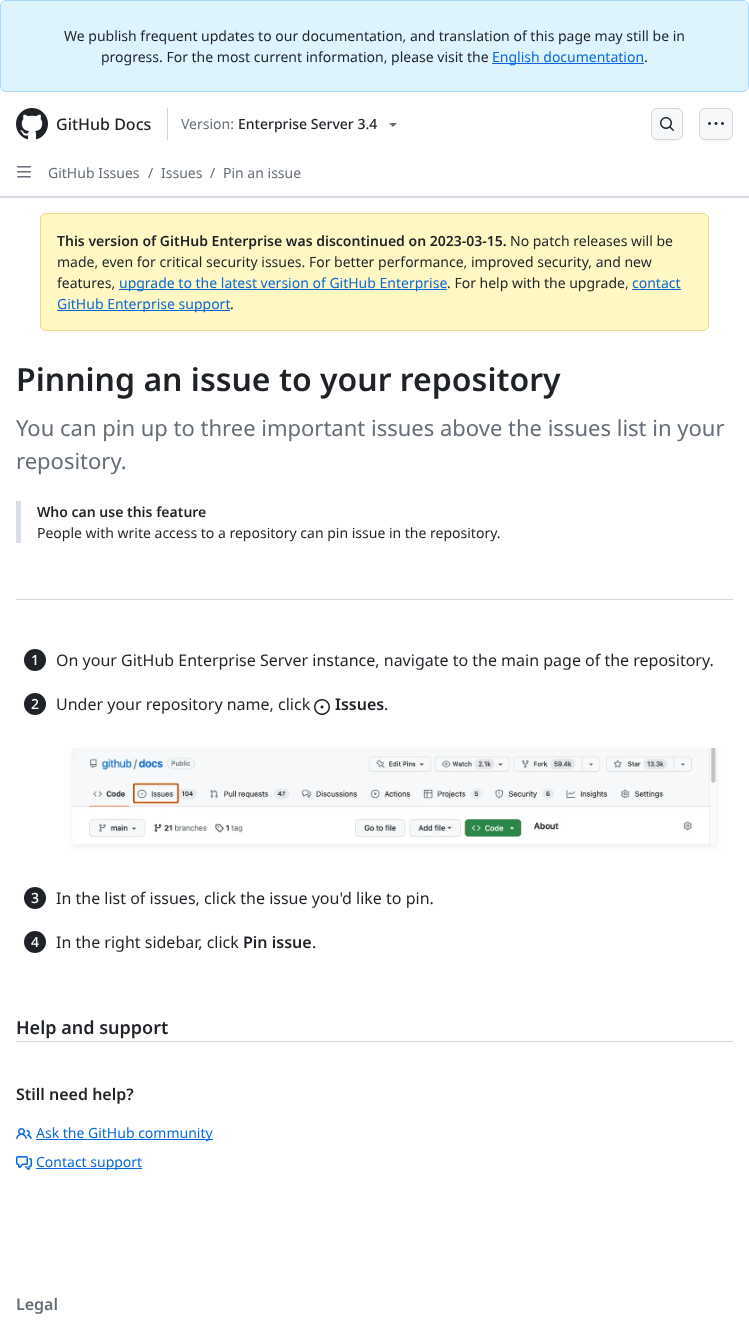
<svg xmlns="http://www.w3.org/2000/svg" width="749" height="1322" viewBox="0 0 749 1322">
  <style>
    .t1 { font: 14px Noto Sans; fill: #1f2328; }
    .t2 { font: 14px Noto Sans; fill: #0969da; }
    .t3 { font: 500 16px Noto Sans; fill: #1f2328; }
    .t4 { font: 14px Noto Sans; fill: #656d76; }
    .t5 { font: 500 14px Noto Sans; fill: #1f2328; }
    .t6 { font: 600 14px Noto Sans; fill: #1f2328; }
    .t7 { font: 600 32px Noto Sans; fill: #1f2328; }
    .t8 { font: 22px Noto Sans; fill: #656d76; }
    .t9 { font: 500 14px Noto Sans; fill: #fff; }
    .t10 { font: 16px Noto Sans; fill: #1f2328; }
    .t11 { font: 600 16px Noto Sans; fill: #1f2328; }
    .t12 { font: 600 18px Noto Sans; fill: #1f2328; }
    .t13 { font: 600 16px Noto Sans; fill: #656d76; }
  </style>
  <rect width="100%" height="100%" fill="#fff"/>
  <rect x="0" y="197" width="749" height="1" fill="#d8dee4"/>
  <rect x="0.5" y="0.5" width="748" height="91" rx="5.5" fill="#ddf4ff" stroke="#a6d8ff"/>
  <text x="64" y="41" class="t1">We publish frequent updates to our documentation, and translation of this page may still be in</text>
  <text x="101" y="62" class="t1">progress. For the most current information, please visit the</text>
  <rect x="492" y="63" width="152" height="1" fill="#0969da"/>
  <text x="492" y="62" class="t2">English documentation</text>
  <text x="644" y="62" class="t1">.</text>
  <rect x="0" y="196" width="749" height="1" fill="#d0d7de"/>
  <image x="16" y="108" width="32" height="32" href="images/1.png"/>
  <text x="56" y="130" class="t3">GitHub Docs</text>
  <rect x="167" y="108" width="1" height="32" fill="#d0d7de"/>
  <text x="181" y="129" class="t4">Version:</text>
  <text x="238" y="129" class="t5">Enterprise Server 3.4</text>
  <image x="389" y="123" width="8" height="4" href="images/2.png"/>
  <path d="M651 134C651 140.5 655 141 660.5 141H673.5C679 141 683 140.5 683 134C683 137.5 680.5 140 677 140H657C653.5 140 651 137.5 651 134Z" fill="#f6f6f6"/>
  <rect x="651.5" y="108.5" width="31" height="31" rx="5.5" fill="#f6f8fa" stroke="#d6d8db"/>
  <image x="660" y="117" width="14" height="14" href="images/3.png"/>
  <path d="M699 134C699 140.5 703 141 708.5 141H723.5C729 141 733 140.5 733 134C733 137.5 730.5 140 727 140H705C701.5 140 699 137.5 699 134Z" fill="#f6f6f6"/>
  <rect x="699.5" y="108.5" width="33" height="31" rx="5.5" fill="#f6f8fa" stroke="#d6d8db"/>
  <image x="708" y="122" width="16" height="3" href="images/4.png"/>
  <image x="17" y="166" width="14" height="12" href="images/5.png"/>
  <text x="48" y="178" class="t4">GitHub Issues</text>
  <text x="148" y="178" class="t4">/</text>
  <text x="161" y="178" class="t4">Issues</text>
  <text x="210" y="178" class="t4">/</text>
  <text x="223" y="178" class="t4">Pin an issue</text>
  <rect x="40" y="213" width="669" height="118" rx="6" fill="#fff8c5"/>
  <rect x="40.5" y="213.5" width="668" height="117" rx="5.5" fill="none" stroke="#d4a72c66"/>
  <text x="57" y="246" class="t6">This version of GitHub Enterprise was discontinued on 2023-03-15.</text>
  <text x="510" y="246" class="t1">No patch releases will be</text>
  <text x="57" y="267" class="t1">made, even for critical security issues. For better performance, improved security, and new</text>
  <text x="57" y="288" class="t1">features,</text>
  <rect x="119" y="289" width="328" height="1" fill="#0969da"/>
  <text x="119" y="288" class="t2">upgrade to the latest version of GitHub Enterprise</text>
  <text x="447" y="288" class="t1">. For help with the upgrade,</text>
  <text x="632" y="288" class="t2">contact</text>
  <rect x="632" y="289" width="49" height="1" fill="#0969da"/>
  <rect x="57" y="310" width="173" height="1" fill="#0969da"/>
  <text x="57" y="309" class="t2">GitHub Enterprise support</text>
  <text x="230" y="309" class="t1">.</text>
  <text x="16" y="391" class="t7">Pinning an issue to your repository</text>
  <text x="16" y="436" class="t8">You can pin up to three important issues above the issues list in your</text>
  <text x="16" y="469" class="t8">repository.</text>
  <rect x="16" y="501" width="5" height="42" fill="#d8dee4"/>
  <text x="37" y="517" class="t6">Who can use this feature</text>
  <text x="37" y="538" class="t1">People with write access to a repository can pin issue in the repository.</text>
  <rect x="16" y="599" width="717" height="1" fill="#d0d7de"/>
  <circle cx="35" cy="660" r="11" fill="#1f2328"/>
  <text x="31" y="665" class="t9">1</text>
  <text x="56" y="666" class="t10">On your GitHub Enterprise Server instance, navigate to the main page of the repository.</text>
  <circle cx="35" cy="704" r="11" fill="#1f2328"/>
  <text x="31" y="709" class="t9">2</text>
  <text x="56" y="710" class="t10">Under your repository name, click</text>
  <image x="314" y="699" width="16" height="16" href="images/6.png"/>
  <text x="335" y="710" class="t11">Issues</text>
  <text x="384" y="710" class="t10">.</text>
  <rect x="72" y="751" width="645" height="96" fill="#8d96a026" filter="blur(3px)"/>
  <image x="72" y="748" width="645" height="96" href="images/7.png"/>
  <circle cx="35" cy="898" r="11" fill="#1f2328"/>
  <text x="31" y="903" class="t9">3</text>
  <text x="56" y="904" class="t10">In the list of issues, click the issue you'd like to pin.</text>
  <circle cx="35" cy="942" r="11" fill="#1f2328"/>
  <text x="31" y="947" class="t9">4</text>
  <text x="56" y="948" class="t10">In the right sidebar, click</text>
  <text x="243" y="948" class="t11">Pin issue</text>
  <text x="312" y="948" class="t10">.</text>
  <text x="16" y="1034" class="t12">Help and support</text>
  <rect x="16" y="1041" width="717" height="1" fill="#d0d7de"/>
  <text x="16" y="1100" class="t11">Still need help?</text>
  <image x="16" y="1128" width="16" height="11" href="images/8.png"/>
  <rect x="36" y="1139" width="177" height="1" fill="#0969da"/>
  <text x="36" y="1138" class="t2">Ask the GitHub community</text>
  <image x="16" y="1156" width="16" height="14" href="images/9.png"/>
  <rect x="36" y="1168" width="106" height="1" fill="#0969da"/>
  <text x="36" y="1167" class="t2">Contact support</text>
  <text x="16" y="1310" class="t13">Legal</text>
</svg>
